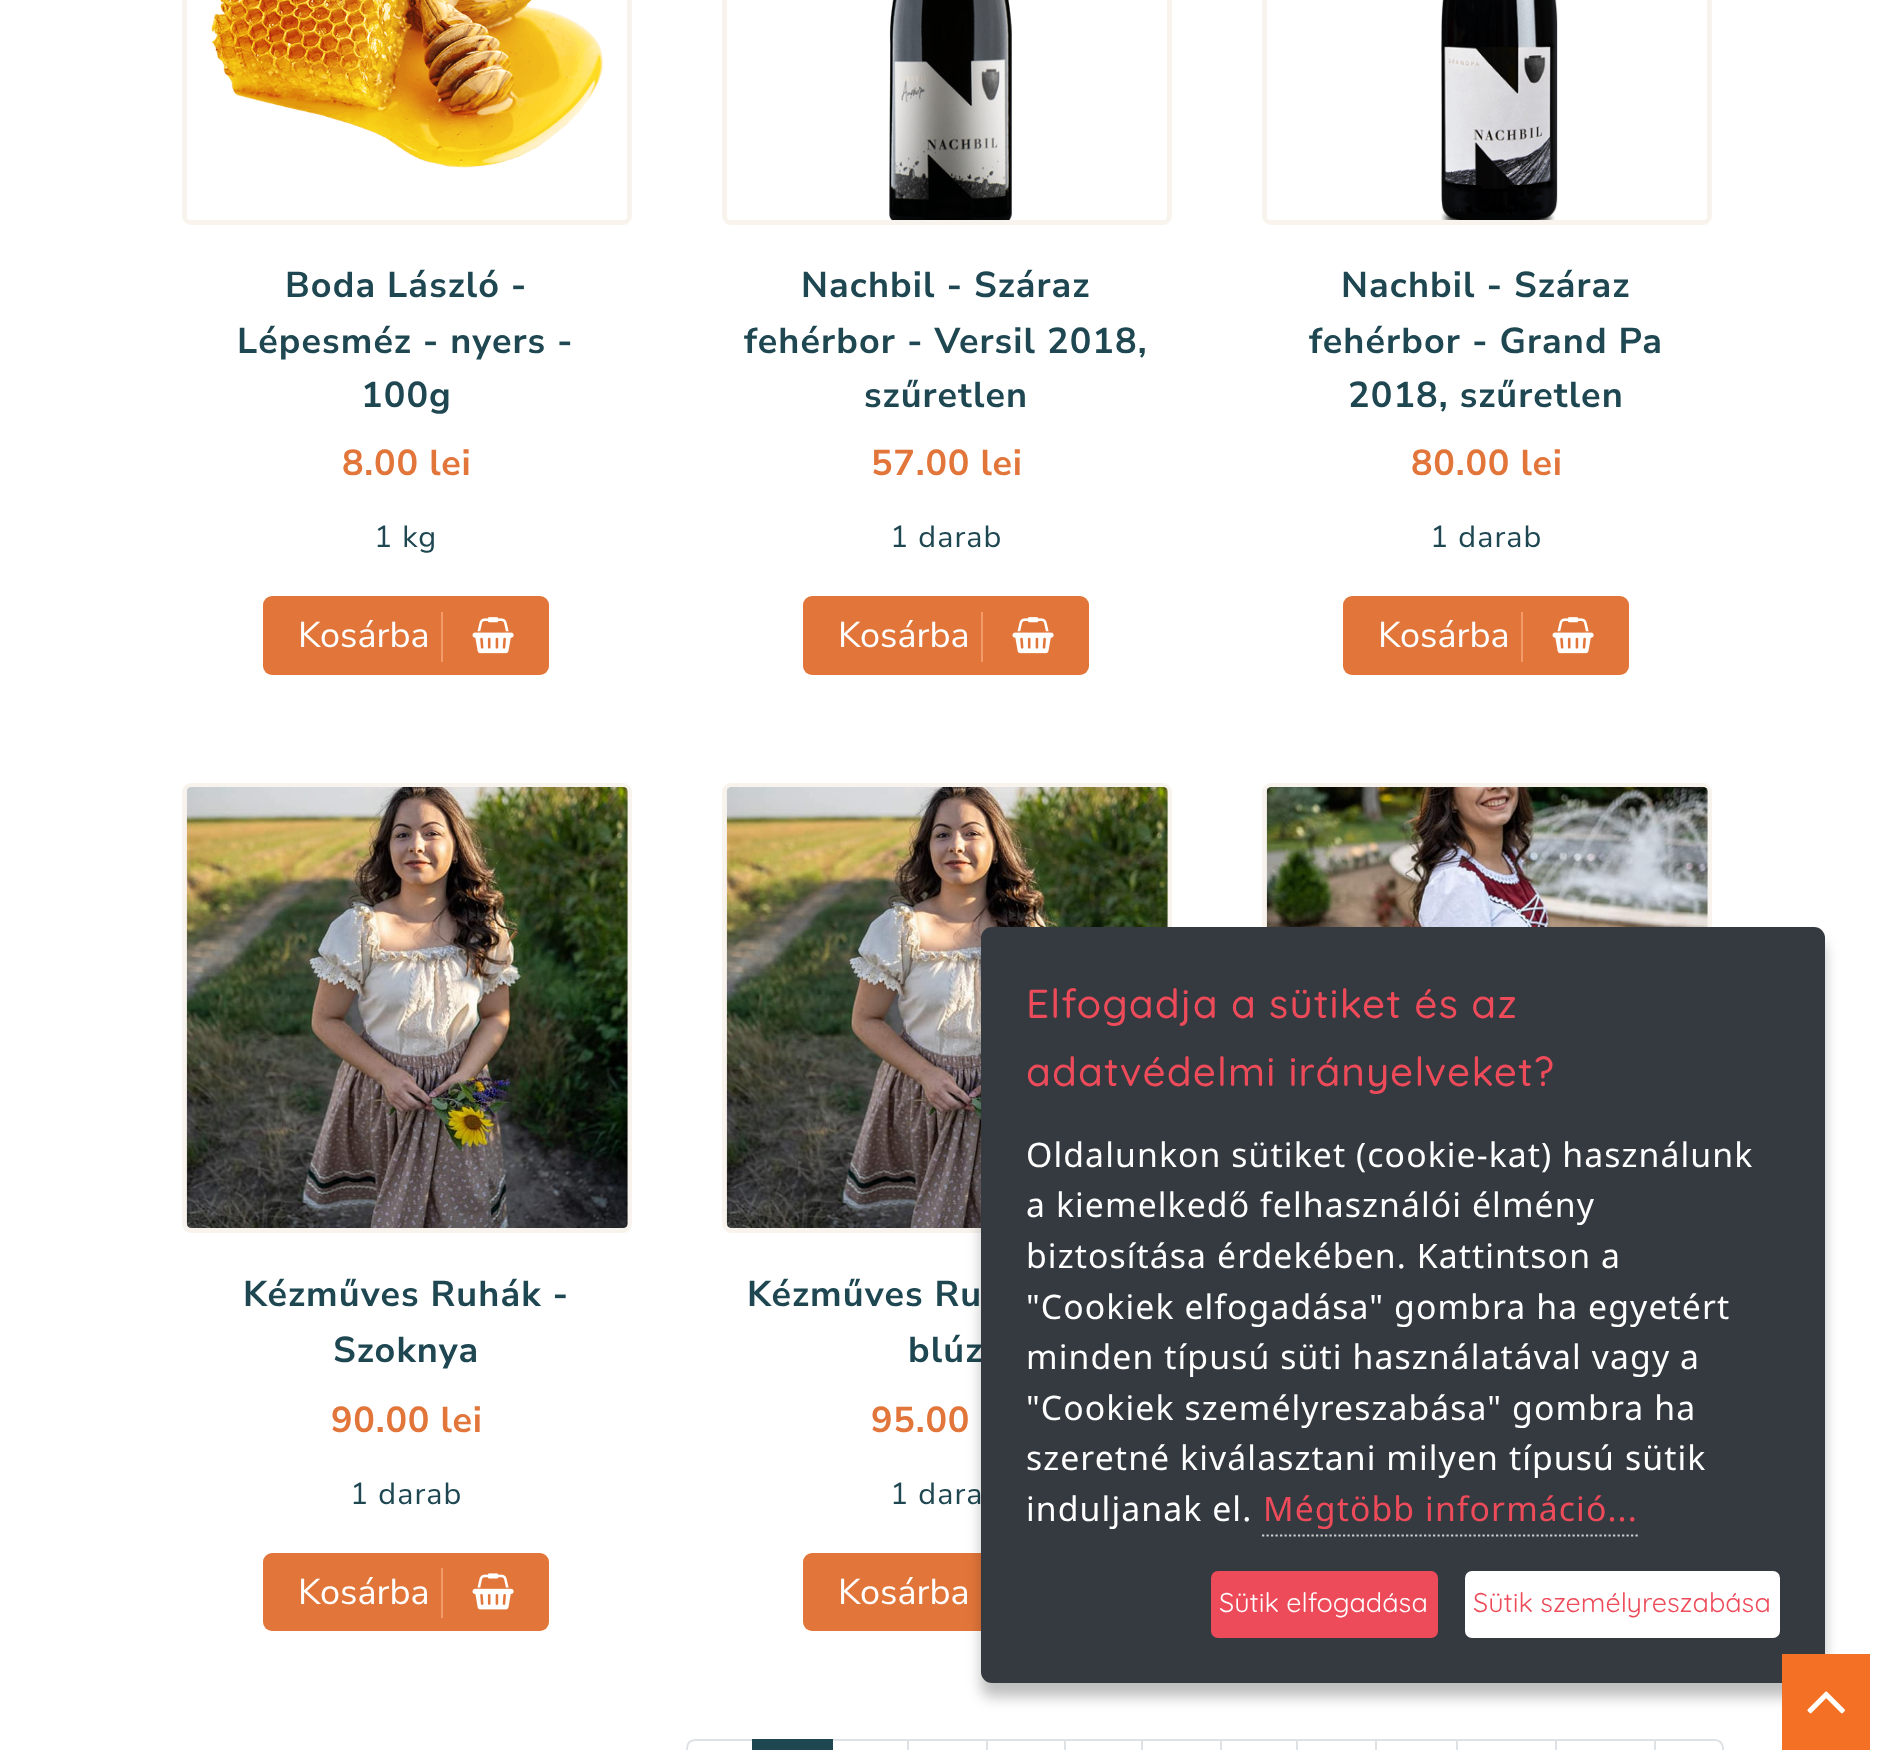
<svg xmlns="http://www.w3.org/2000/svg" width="1892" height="1750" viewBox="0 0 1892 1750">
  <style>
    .t1 { font: bold 36px Nunito Sans; letter-spacing: 1.1px; fill: #1e4752; }
    .t2 { font: bold 36px Nunito Sans; letter-spacing: 0.75px; fill: #e2753a; }
    .t3 { font: 30.5px Nunito Sans; letter-spacing: 1.1px; fill: #1e4752; }
    .t4 { font: 36px Nunito Sans; fill: #fff; }
    .t5 { font: 500 40.5px Quicksand; letter-spacing: 1.1px; fill: #ee4b5a; }
    .t6 { font: 33.75px Noto Sans; letter-spacing: 1.1px; fill: #fff; }
    .t7 { font: 33.75px Noto Sans; letter-spacing: 1.1px; fill: #ee4b5a; }
    .t8 { font: 27px Quicksand; fill: #fff; }
    .t9 { font: 27px Quicksand; fill: #ee4b5a; }
  </style>
  <rect width="100%" height="100%" fill="#fff"/>
  <rect x="184.5" y="-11.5" width="445" height="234" rx="6.5" fill="none" stroke="#f8f3ed" stroke-width="5"/>
  <image x="211" y="0" width="392" height="168" href="images/1.png"/>
  <text x="285" y="297" class="t1">Boda László -</text>
  <text x="237" y="353" class="t1">Lépesméz - nyers -</text>
  <text x="361" y="407" class="t1">100g</text>
  <text x="342" y="475" class="t2">8.00 lei</text>
  <text x="374" y="547" class="t3">1 kg</text>
  <rect x="263" y="596" width="286" height="79" rx="9" fill="#e2763a"/>
  <text x="298" y="647" class="t4">Kosárba</text>
  <rect x="441" y="612" width="2" height="50" fill="#f59b69"/>
  <image x="472" y="617" width="42" height="37" href="images/2.png"/>
  <rect x="724.5" y="-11.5" width="445" height="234" rx="6.5" fill="none" stroke="#f8f3ed" stroke-width="5"/>
  <image x="889" y="0" width="123" height="220" href="images/3.png"/>
  <text x="801" y="297" class="t1">Nachbil - Száraz</text>
  <text x="744" y="353" class="t1">fehérbor - Versil 2018,</text>
  <text x="864" y="407" class="t1">szűretlen</text>
  <text x="871" y="475" class="t2">57.00 lei</text>
  <text x="890" y="547" class="t3">1 darab</text>
  <rect x="803" y="596" width="286" height="79" rx="9" fill="#e2763a"/>
  <text x="838" y="647" class="t4">Kosárba</text>
  <rect x="981" y="612" width="2" height="50" fill="#f59b69"/>
  <image x="1012" y="617" width="42" height="37" href="images/2.png"/>
  <rect x="1264.5" y="-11.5" width="445" height="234" rx="6.5" fill="none" stroke="#f8f3ed" stroke-width="5"/>
  <image x="1441" y="0" width="117" height="220" href="images/4.png"/>
  <text x="1341" y="297" class="t1">Nachbil - Száraz</text>
  <text x="1309" y="353" class="t1">fehérbor - Grand Pa</text>
  <text x="1348" y="407" class="t1">2018, szűretlen</text>
  <text x="1411" y="475" class="t2">80.00 lei</text>
  <text x="1430" y="547" class="t3">1 darab</text>
  <rect x="1343" y="596" width="286" height="79" rx="9" fill="#e2763a"/>
  <text x="1378" y="647" class="t4">Kosárba</text>
  <rect x="1521" y="612" width="2" height="50" fill="#f59b69"/>
  <image x="1552" y="617" width="42" height="37" href="images/2.png"/>
  <rect x="1264.5" y="785.5" width="445" height="445" rx="6.5" fill="none" stroke="#f8f3ed" stroke-width="5"/>
  <image x="1266" y="787" width="442" height="140" href="images/5.png"/>
  <rect x="184.5" y="785.5" width="445" height="445" rx="6.5" fill="none" stroke="#f8f3ed" stroke-width="5"/>
  <image x="186" y="787" width="442" height="441" href="images/6.png"/>
  <text x="243" y="1306" class="t1">Kézműves Ruhák -</text>
  <text x="333" y="1362" class="t1">Szoknya</text>
  <text x="331" y="1432" class="t2">90.00 lei</text>
  <text x="350" y="1504" class="t3">1 darab</text>
  <rect x="263" y="1553" width="286" height="78" rx="9" fill="#e2763a"/>
  <text x="298" y="1604" class="t4">Kosárba</text>
  <rect x="441" y="1568" width="2" height="50" fill="#f59b69"/>
  <image x="472" y="1573" width="42" height="37" href="images/7.png"/>
  <rect x="724.5" y="785.5" width="445" height="445" rx="6.5" fill="none" stroke="#f8f3ed" stroke-width="5"/>
  <image x="726" y="787" width="442" height="441" href="images/6.png"/>
  <text x="747" y="1306" class="t1">Kézműves Ru</text>
  <text x="908" y="1362" class="t1">blúz</text>
  <text x="871" y="1432" class="t2">95.00</text>
  <text x="890" y="1504" class="t3">1 dara</text>
  <rect x="803" y="1553" width="286" height="78" rx="9" fill="#e2763a"/>
  <text x="838" y="1604" class="t4">Kosárba</text>
  <path d="M695 1740H753V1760H695C690.5 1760 687 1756.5 687 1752V1748C687 1743.5 690.5 1740 695 1740Z" fill="none" stroke="#dee2e6" stroke-width="2"/>
  <rect x="831" y="1740" width="77" height="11" fill="none" stroke="#dee2e6" stroke-width="2"/>
  <rect x="752" y="1739" width="81" height="11" fill="#1e4752"/>
  <rect x="908" y="1740" width="79" height="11" fill="none" stroke="#dee2e6" stroke-width="2"/>
  <rect x="987" y="1740" width="79" height="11" fill="none" stroke="#dee2e6" stroke-width="2"/>
  <rect x="1066" y="1741" width="1" height="9" fill="#fff"/>
  <rect x="1065" y="1740" width="77" height="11" fill="none" stroke="#dee2e6" stroke-width="2"/>
  <rect x="1142" y="1740" width="79" height="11" fill="none" stroke="#dee2e6" stroke-width="2"/>
  <rect x="1221" y="1740" width="76" height="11" fill="none" stroke="#dee2e6" stroke-width="2"/>
  <rect x="1297" y="1740" width="79" height="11" fill="none" stroke="#dee2e6" stroke-width="2"/>
  <rect x="1376" y="1740" width="81" height="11" fill="none" stroke="#dee2e6" stroke-width="2"/>
  <rect x="1457" y="1740" width="99" height="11" fill="none" stroke="#dee2e6" stroke-width="2"/>
  <rect x="1556" y="1740" width="99" height="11" fill="none" stroke="#dee2e6" stroke-width="2"/>
  <path d="M1655 1740H1715C1719.5 1740 1723 1743.5 1723 1748V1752C1723 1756.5 1719.5 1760 1715 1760H1655Z" fill="#fff" stroke="#dee2e6" stroke-width="2"/>
  <rect x="981" y="941" width="844" height="756" rx="11" fill="#00000040" filter="blur(7px)"/>
  <rect x="981" y="927" width="844" height="756" rx="11" fill="#343a40"/>
  <text x="1026" y="1018" class="t5">Elfogadja a sütiket és az</text>
  <text x="1026" y="1086" class="t5">adatvédelmi irányelveket?</text>
  <text x="1026" y="1167" class="t6">Oldalunkon sütiket (cookie-kat) használunk</text>
  <text x="1026" y="1217" class="t6">a kiemelkedő felhasználói élmény</text>
  <text x="1026" y="1268" class="t6">biztosítása érdekében. Kattintson a</text>
  <text x="1026" y="1319" class="t6">"Cookiek elfogadása" gombra ha egyetért</text>
  <text x="1026" y="1369" class="t6">minden típusú süti használatával vagy a</text>
  <text x="1026" y="1420" class="t6">"Cookiek személyreszabása" gombra ha</text>
  <text x="1026" y="1470" class="t6">szeretné kiválasztani milyen típusú sütik</text>
  <text x="1026" y="1521" class="t6">induljanak el.</text>
  <text x="1263" y="1521" class="t7">Mégtöbb információ...</text>
  <path d="M1262 1535.5H1638" fill="none" stroke="#cccecf" stroke-width="2.2" stroke-dasharray="2.25 2.25"/>
  <rect x="1211" y="1571" width="227" height="67" rx="7" fill="#ee4b5a"/>
  <text x="1219" y="1612" class="t8">Sütik elfogadása</text>
  <rect x="1465" y="1571" width="315" height="67" rx="7" fill="#fff"/>
  <text x="1473" y="1612" class="t9">Sütik személyreszabása</text>
  <rect x="1782" y="1654" width="88" height="96" fill="#f37024"/>
  <image x="1807" y="1691" width="38" height="23" href="images/8.png"/>
</svg>
